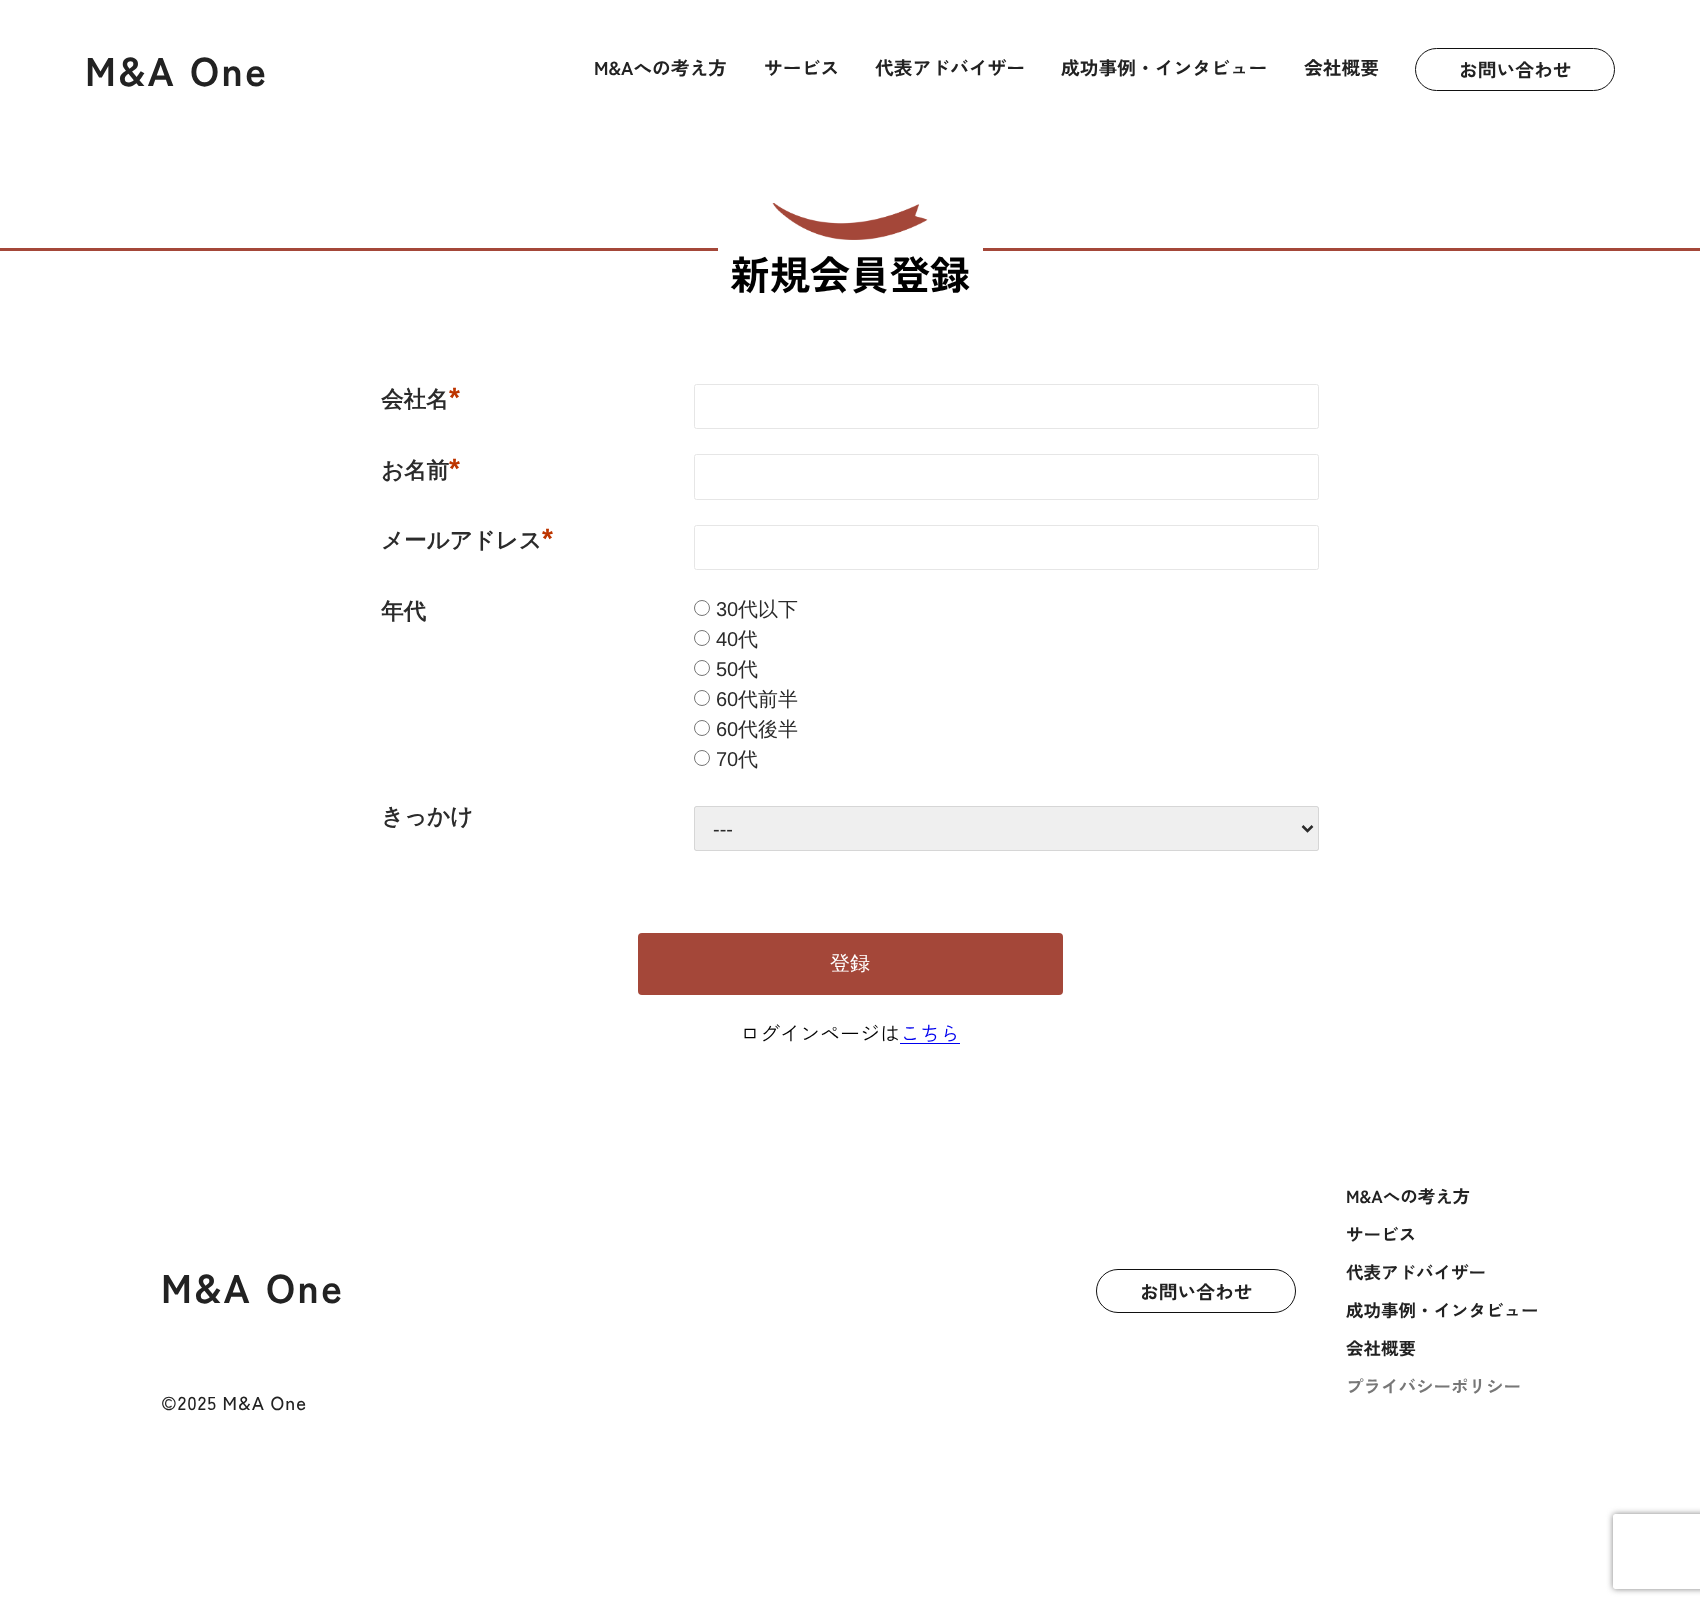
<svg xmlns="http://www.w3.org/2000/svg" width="1700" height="1606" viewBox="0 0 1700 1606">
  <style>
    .t1 { font: bold 40px Zen Kaku Gothic New; letter-spacing: 2.5px; fill: #222; }
    .t2 { font: bold 18.75px Zen Kaku Gothic New; fill: #222; }
    .t3 { font: bold 40px Zen Kaku Gothic New; fill: #000; }
    .t4 { font: bold 22.5px WenQuanYi Zen Hei; fill: #2b2b2b; }
    .t5 { font: bold 28px Liberation Sans; fill: #bd3500; }
    .t6 { font: 20px Liberation Sans; fill: #2b2b2b; }
    .t7 { font: 500 20px WenQuanYi Zen Hei; fill: #2b2b2b; }
    .t8 { font: 500 20px WenQuanYi Zen Hei; fill: #fff; }
    .t9 { font: 20px Zen Kaku Gothic New; fill: #000; }
    .t10 { font: 20px Zen Kaku Gothic New; fill: #00e; }
    .t11 { font: 500 18.75px Zen Kaku Gothic New; letter-spacing: 1.1px; fill: #222; }
    .t12 { font: bold 17.5px Zen Kaku Gothic New; fill: #222; }
    .t13 { font: bold 17.5px Zen Kaku Gothic New; fill: #777; }
  </style>
  <defs>
    <clipPath id="clip1"><path d="M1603 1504H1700V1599H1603ZM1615.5 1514H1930.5C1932 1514 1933 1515 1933 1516.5V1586.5C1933 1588 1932 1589 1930.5 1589H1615.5C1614 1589 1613 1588 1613 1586.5V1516.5C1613 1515 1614 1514 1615.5 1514Z" clip-rule="evenodd"/></clipPath>
  </defs>
  <rect width="100%" height="100%" fill="#fff"/>
  <text x="85" y="86" class="t1">M&amp;A One</text>
  <text x="594" y="75" class="t2">M&amp;Aへの考え方</text>
  <text x="764" y="75" class="t2">サービス</text>
  <text x="875" y="75" class="t2">代表アドバイザー</text>
  <text x="1061" y="75" class="t2">成功事例・インタビュー</text>
  <text x="1304" y="75" class="t2">会社概要</text>
  <rect x="1415.5" y="48.5" width="199" height="42" rx="21" fill="none" stroke="#111"/>
  <text x="1459" y="77" class="t2">お問い合わせ</text>
  <image x="772" y="203" width="156" height="37" href="images/1.png"/>
  <rect x="0" y="248" width="718" height="3" fill="#a44739"/>
  <rect x="983" y="248" width="717" height="3" fill="#a44739"/>
  <text x="730" y="290" class="t3">新規会員登録</text>
  <text x="381" y="407" class="t4">会社名</text>
  <text x="449" y="407" class="t5">*</text>
  <rect x="694.5" y="384.5" width="624" height="44" rx="2" fill="none" stroke="#e6e6e6"/>
  <text x="381" y="478" class="t4">お名前</text>
  <text x="449" y="478" class="t5">*</text>
  <rect x="694.5" y="454.5" width="624" height="45" rx="2" fill="none" stroke="#e6e6e6"/>
  <text x="381" y="548" class="t4">メールアドレス</text>
  <text x="542" y="548" class="t5">*</text>
  <rect x="694.5" y="525.5" width="624" height="44" rx="2" fill="none" stroke="#e6e6e6"/>
  <text x="381" y="619" class="t4">年代</text>
  <circle cx="702" cy="608" r="7.5" fill="none" stroke="#767676"/>
  <text x="716" y="616" class="t6">30</text>
  <text x="738" y="616" class="t7">代以下</text>
  <circle cx="702" cy="638" r="7.5" fill="none" stroke="#767676"/>
  <text x="716" y="646" class="t6">40</text>
  <text x="738" y="646" class="t7">代</text>
  <circle cx="702" cy="668" r="7.5" fill="none" stroke="#767676"/>
  <text x="716" y="676" class="t6">50</text>
  <text x="738" y="676" class="t7">代</text>
  <circle cx="702" cy="698" r="7.5" fill="none" stroke="#767676"/>
  <text x="716" y="706" class="t6">60</text>
  <text x="738" y="706" class="t7">代前半</text>
  <circle cx="702" cy="728" r="7.5" fill="none" stroke="#767676"/>
  <text x="716" y="736" class="t6">60</text>
  <text x="738" y="736" class="t7">代後半</text>
  <circle cx="702" cy="758" r="7.5" fill="none" stroke="#767676"/>
  <text x="716" y="766" class="t6">70</text>
  <text x="738" y="766" class="t7">代</text>
  <text x="381" y="824" class="t4">きっかけ</text>
  <rect x="694" y="806" width="625" height="45" rx="2.5" fill="#efefef"/>
  <rect x="694.5" y="806.5" width="624" height="44" rx="2" fill="none" stroke="#0000001a"/>
  <path d="M1302.5 826L1307.5 831L1312.5 826" fill="none" stroke="#2b2b2b" stroke-width="2.5"/>
  <text x="713" y="836" class="t6">---</text>
  <rect x="638" y="933" width="425" height="62" rx="4" fill="#a44739"/>
  <text x="830" y="970" class="t8">登録</text>
  <text x="740" y="1041" class="t9">ログインページは</text>
  <text x="900" y="1041" class="t10">こちら</text>
  <rect x="900" y="1043" width="60" height="1" fill="#00e"/>
  <text x="161" y="1303" class="t1">M&amp;A One</text>
  <text x="161" y="1410" word-spacing="-1" class="t11">©︎2025 M&amp;A One</text>
  <rect x="1096.5" y="1269.5" width="199" height="43" rx="21.5" fill="none" stroke="#111"/>
  <text x="1140" y="1299" class="t2">お問い合わせ</text>
  <text x="1346" y="1203" class="t12">M&amp;Aへの考え方</text>
  <text x="1346" y="1241" class="t12">サービス</text>
  <text x="1346" y="1279" class="t12">代表アドバイザー</text>
  <text x="1346" y="1317" class="t12">成功事例・インタビュー</text>
  <text x="1346" y="1355" class="t12">会社概要</text>
  <text x="1346" y="1393" class="t13">プライバシーポリシー</text>
  <g clip-path="url(#clip1)">
    <rect x="1613" y="1514" width="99" height="75" rx="2.5" fill="#808080" filter="blur(3px)"/>
  </g>
</svg>
